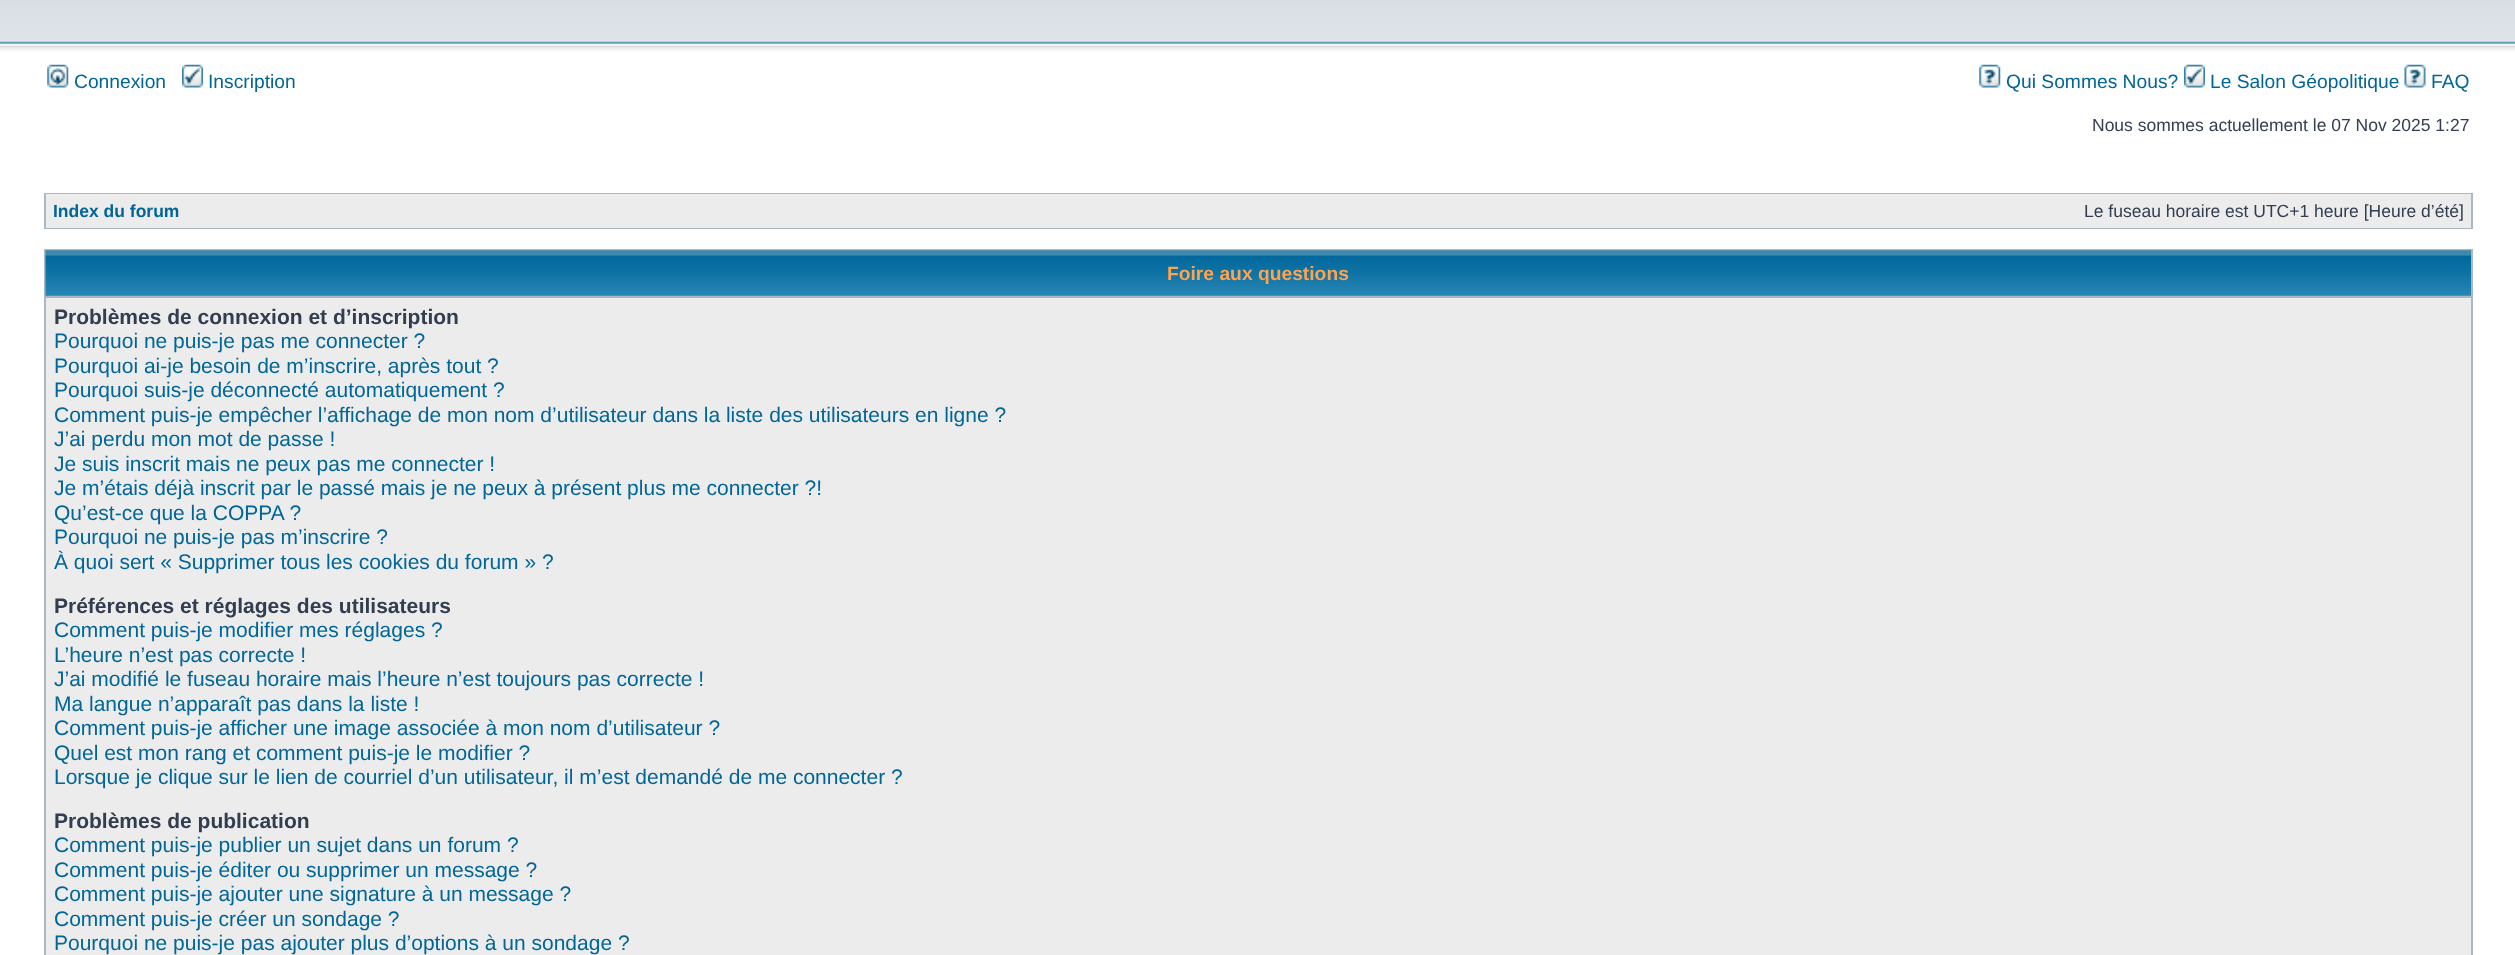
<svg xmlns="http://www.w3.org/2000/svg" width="2515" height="955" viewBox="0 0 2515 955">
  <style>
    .t1 { font: 19.25px Liberation Sans; fill: #006597; }
    .t2 { font: 17.5px Liberation Sans; fill: #323d4f; }
    .t3 { font: bold 17.5px Liberation Sans; fill: #006597; }
    .t4 { font: bold 19.25px Liberation Sans; fill: #ffa34f; }
    .t5 { font: bold 21px Liberation Sans; fill: #323d4f; }
    .t6 { font: 21px Liberation Sans; fill: #006597; }
  </style>
  <rect width="100%" height="100%" fill="#fff"/>
  <image x="0" y="0" width="2515" height="61" href="images/1.png"/>
  <image x="47" y="64" width="22" height="24" href="images/2.png"/>
  <text x="74" y="88" class="t1">Connexion</text>
  <image x="182" y="64" width="21" height="24" href="images/3.png"/>
  <text x="208" y="88" class="t1">Inscription</text>
  <image x="1979" y="64" width="22" height="24" href="images/4.png"/>
  <text x="2006" y="88" class="t1">Qui Sommes Nous?</text>
  <image x="2184" y="64" width="21" height="24" href="images/3.png"/>
  <text x="2210" y="88" class="t1">Le Salon Géopolitique</text>
  <image x="2404" y="64" width="22" height="24" href="images/5.png"/>
  <text x="2431" y="88" class="t1">FAQ</text>
  <text x="2092" y="131" class="t2">Nous sommes actuellement le 07 Nov 2025 1:27</text>
  <rect x="44" y="193" width="2429" height="36" fill="#a9b8c2"/>
  <rect x="46" y="194" width="2425" height="34" fill="#ececec"/>
  <text x="53" y="217" class="t3">Index du forum</text>
  <text x="2084" y="217" class="t2">Le fuseau horaire est UTC+1 heure [Heure d’été]</text>
  <rect x="44" y="249" width="2429" height="706" fill="#a9b8c2"/>
  <image x="45" y="250" width="2426" height="46" href="images/6.png"/>
  <text x="1167" y="280" class="t4">Foire aux questions</text>
  <rect x="46" y="298" width="2425" height="657" fill="#ececec"/>
  <text x="54" y="324" class="t5">Problèmes de connexion et d’inscription</text>
  <text x="54" y="348" class="t6">Pourquoi ne puis-je pas me connecter ?</text>
  <text x="54" y="373" class="t6">Pourquoi ai-je besoin de m’inscrire, après tout ?</text>
  <text x="54" y="397" class="t6">Pourquoi suis-je déconnecté automatiquement ?</text>
  <text x="54" y="422" class="t6">Comment puis-je empêcher l’affichage de mon nom d’utilisateur dans la liste des utilisateurs en ligne ?</text>
  <text x="54" y="446" class="t6">J’ai perdu mon mot de passe !</text>
  <text x="54" y="471" class="t6">Je suis inscrit mais ne peux pas me connecter !</text>
  <text x="54" y="495" class="t6">Je m’étais déjà inscrit par le passé mais je ne peux à présent plus me connecter ?!</text>
  <text x="54" y="520" class="t6">Qu’est-ce que la COPPA ?</text>
  <text x="54" y="544" class="t6">Pourquoi ne puis-je pas m’inscrire ?</text>
  <text x="54" y="569" class="t6">À quoi sert « Supprimer tous les cookies du forum » ?</text>
  <text x="54" y="613" class="t5">Préférences et réglages des utilisateurs</text>
  <text x="54" y="637" class="t6">Comment puis-je modifier mes réglages ?</text>
  <text x="54" y="662" class="t6">L’heure n’est pas correcte !</text>
  <text x="54" y="686" class="t6">J’ai modifié le fuseau horaire mais l’heure n’est toujours pas correcte !</text>
  <text x="54" y="711" class="t6">Ma langue n’apparaît pas dans la liste !</text>
  <text x="54" y="735" class="t6">Comment puis-je afficher une image associée à mon nom d’utilisateur ?</text>
  <text x="54" y="760" class="t6">Quel est mon rang et comment puis-je le modifier ?</text>
  <text x="54" y="784" class="t6">Lorsque je clique sur le lien de courriel d’un utilisateur, il m’est demandé de me connecter ?</text>
  <text x="54" y="828" class="t5">Problèmes de publication</text>
  <text x="54" y="852" class="t6">Comment puis-je publier un sujet dans un forum ?</text>
  <text x="54" y="877" class="t6">Comment puis-je éditer ou supprimer un message ?</text>
  <text x="54" y="901" class="t6">Comment puis-je ajouter une signature à un message ?</text>
  <text x="54" y="926" class="t6">Comment puis-je créer un sondage ?</text>
  <text x="54" y="950" class="t6">Pourquoi ne puis-je pas ajouter plus d’options à un sondage ?</text>
</svg>
